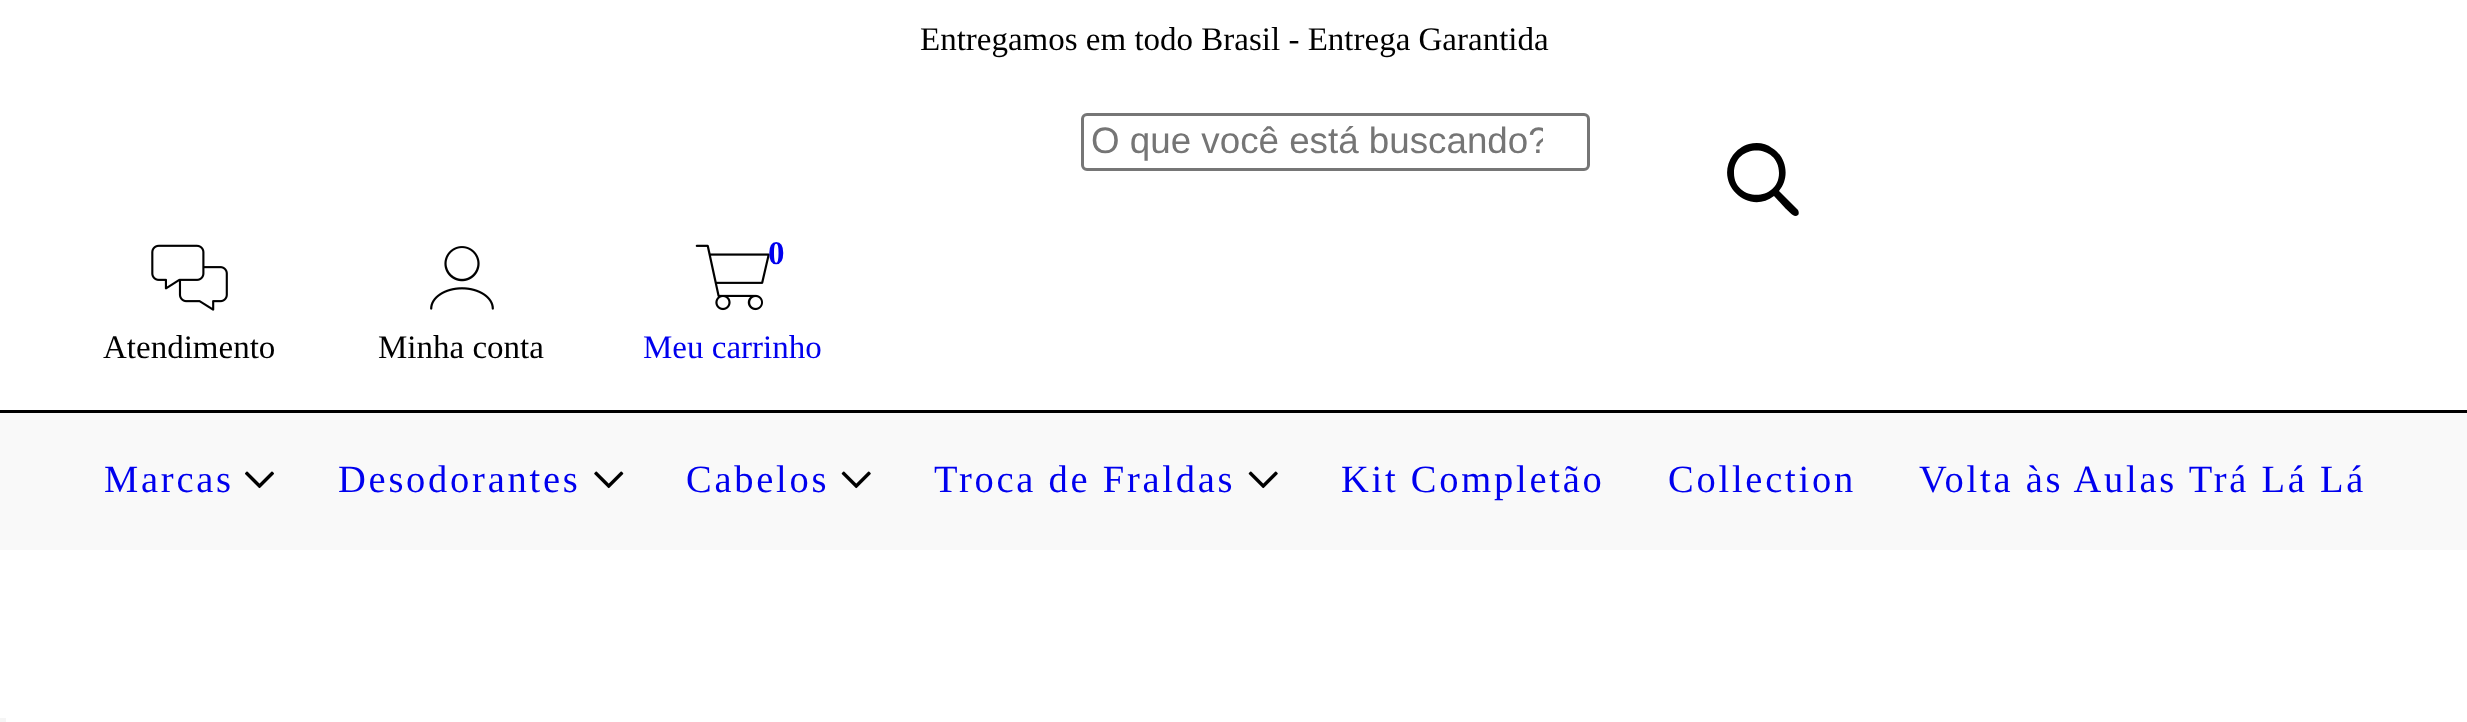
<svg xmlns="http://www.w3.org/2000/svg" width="2467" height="722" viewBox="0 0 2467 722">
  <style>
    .t1 { font: 33px Liberation Serif; fill: #000; }
    .t2 { font: 36.75px Liberation Sans; fill: #757575; }
    .t3 { font: bold 33px Liberation Serif; fill: #00e; }
    .t4 { font: 33px Liberation Serif; fill: #00e; }
    .t5 { font: 38.5px Liberation Serif; letter-spacing: 2.75px; fill: #00e; }
  </style>
  <defs>
    <clipPath id="clip1"><rect x="1092" y="121" width="451" height="41"/></clipPath>
  </defs>
  <rect width="100%" height="100%" fill="#fff"/>
  <text x="920" y="50" class="t1">Entregamos em todo Brasil - Entrega Garantida</text>
  <rect x="1082.5" y="114.5" width="506" height="55" rx="4.5" fill="none" stroke="#767676" stroke-width="3"/>
  <g clip-path="url(#clip1)">
    <text x="1091" y="153" class="t2">O que você está buscando?</text>
  </g>
  <path d="M1798 210L1779 191C1790 178 1787 157 1772 148C1766 143 1757 142 1749 144C1742 146 1737 150 1733 155C1713 183 1748 216 1774 196L1786 209C1788 210 1794 219 1798 215C1799 214 1799 212 1798 210ZM1734 173C1734 143 1779 143 1779 173C1779 202 1734 202 1734 173Z" fill="#000"/>
  <image x="151" y="244" width="77" height="67" href="images/1.png"/>
  <text x="103" y="358" class="t1">Atendimento</text>
  <image x="430" y="246" width="64" height="64" href="images/2.png"/>
  <text x="378" y="358" class="t1">Minha conta</text>
  <image x="695" y="244" width="75" height="67" href="images/3.png"/>
  <text x="768" y="264" class="t3">0</text>
  <text x="643" y="358" class="t4">Meu carrinho</text>
  <rect x="0" y="410" width="2467" height="3" fill="#000"/>
  <rect x="0" y="413" width="2467" height="137" fill="#f9f9f9"/>
  <text x="104" y="492" class="t5">Marcas</text>
  <image x="245" y="471" width="29" height="18" href="images/4.png"/>
  <text x="338" y="492" class="t5">Desodorantes</text>
  <image x="594" y="471" width="30" height="18" href="images/5.png"/>
  <text x="686" y="492" class="t5">Cabelos</text>
  <image x="841" y="471" width="30" height="18" href="images/6.png"/>
  <text x="934" y="492" class="t5">Troca de Fraldas</text>
  <image x="1248" y="471" width="30" height="18" href="images/6.png"/>
  <text x="1341" y="492" class="t5">Kit Completão</text>
  <text x="1668" y="492" class="t5">Collection</text>
  <text x="1919" y="492" class="t5">Volta às Aulas Trá Lá Lá</text>
  <rect x="0" y="718" width="6" height="4" fill="#f5f5f5"/>
</svg>
